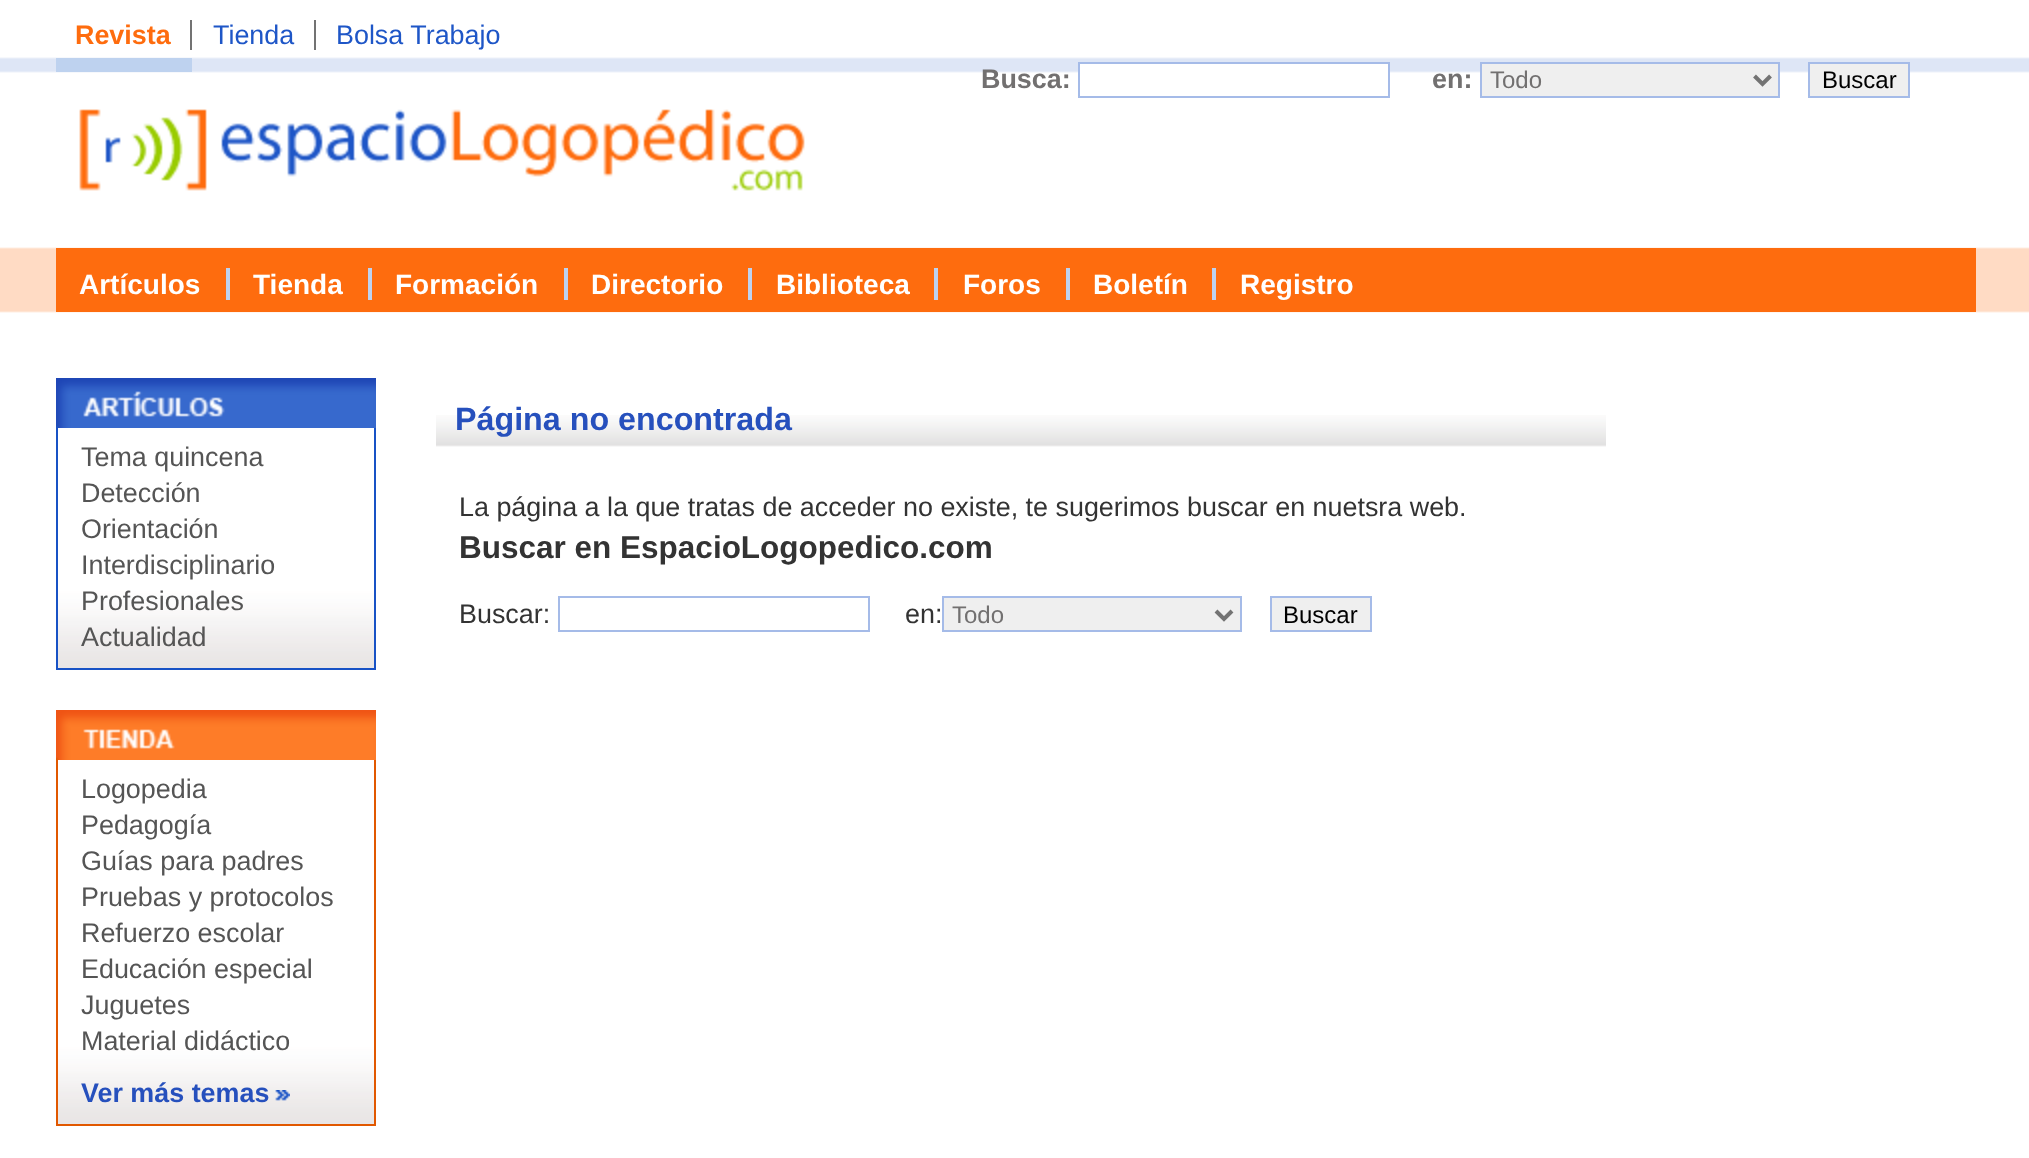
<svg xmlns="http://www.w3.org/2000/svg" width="2029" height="1158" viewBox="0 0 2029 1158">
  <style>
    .t1 { font: bold 26.9px Liberation Sans; fill: #fe6c0e; }
    .t2 { font: 26.9px Liberation Sans; fill: #1e56c7; }
    .t3 { font: bold 26.9px Liberation Sans; fill: #727070; }
    .t4 { font: 24px Liberation Sans; fill: #727070; }
    .t5 { font: 24px Liberation Sans; fill: #000; }
    .t6 { font: bold 28px Liberation Sans; fill: #fff; }
    .t7 { font: 26.9px Liberation Sans; fill: #555; }
    .t8 { font: bold 26.9px Liberation Sans; fill: #2650bd; }
    .t9 { font: bold 32.25px Liberation Sans; fill: #2650bd; }
    .t10 { font: 26.9px Liberation Sans; fill: #333; }
    .t11 { font: bold 31.5px Liberation Sans; fill: #333; }
  </style>
  <rect width="100%" height="100%" fill="#fff"/>
  <image x="0" y="57" width="2029" height="256" href="images/1.png"/>
  <rect x="56" y="58" width="136" height="14" fill="#bed2ef"/>
  <rect x="190" y="20" width="2" height="30" fill="#737373"/>
  <text x="75" y="44" class="t1">Revista</text>
  <text x="213" y="44" class="t2">Tienda</text>
  <rect x="314" y="20" width="2" height="30" fill="#737373"/>
  <text x="336" y="44" class="t2">Bolsa Trabajo</text>
  <text x="981" y="88" class="t3">Busca:</text>
  <rect x="1080" y="64" width="308" height="9" fill="#fff"/>
  <rect x="1079" y="63" width="310" height="34" fill="none" stroke="#a5bbe8" stroke-width="2"/>
  <text x="1432" y="88" class="t3">en:</text>
  <rect x="1481" y="63" width="298" height="34" fill="#efefef" stroke="#a5bbe8" stroke-width="2"/>
  <path d="M1754.5 76L1762.5 84L1770.5 76" fill="none" stroke="#737373" stroke-width="4"/>
  <text x="1490" y="88" class="t4">Todo</text>
  <rect x="1809" y="63" width="100" height="34" fill="#efefef" stroke="#a5bbe8" stroke-width="2"/>
  <text x="1822" y="88" class="t5">Buscar</text>
  <image x="79" y="109" width="726" height="82" href="images/2.png"/>
  <rect x="56" y="248" width="1920" height="64" fill="#fe6c0e"/>
  <text x="79" y="294" class="t6">Artículos</text>
  <rect x="226" y="268" width="4" height="32" fill="#bed2ef"/>
  <text x="253" y="294" class="t6">Tienda</text>
  <rect x="368" y="268" width="4" height="32" fill="#bed2ef"/>
  <text x="395" y="294" class="t6">Formación</text>
  <rect x="564" y="268" width="4" height="32" fill="#bed2ef"/>
  <text x="591" y="294" class="t6">Directorio</text>
  <rect x="748" y="268" width="4" height="32" fill="#bed2ef"/>
  <text x="776" y="294" class="t6">Biblioteca</text>
  <rect x="934" y="268" width="4" height="32" fill="#bed2ef"/>
  <text x="963" y="294" class="t6">Foros</text>
  <rect x="1066" y="268" width="4" height="32" fill="#bed2ef"/>
  <text x="1093" y="294" class="t6">Boletín</text>
  <rect x="1212" y="268" width="4" height="32" fill="#bed2ef"/>
  <text x="1240" y="294" class="t6">Registro</text>
  <image x="56" y="378" width="320" height="50" href="images/3.png"/>
  <image x="58" y="428" width="316" height="240" href="images/4.png"/>
  <rect x="374" y="428" width="2" height="242" fill="#1852c5"/>
  <rect x="56" y="668" width="320" height="2" fill="#1852c5"/>
  <rect x="56" y="428" width="2" height="242" fill="#1852c5"/>
  <text x="81" y="466" class="t7">Tema quincena</text>
  <text x="81" y="502" class="t7">Detección</text>
  <text x="81" y="538" class="t7">Orientación</text>
  <text x="81" y="574" class="t7">Interdisciplinario</text>
  <text x="81" y="610" class="t7">Profesionales</text>
  <text x="81" y="646" class="t7">Actualidad</text>
  <image x="56" y="710" width="320" height="50" href="images/5.png"/>
  <image x="58" y="760" width="316" height="364" href="images/6.png"/>
  <rect x="374" y="760" width="2" height="366" fill="#e15800"/>
  <rect x="56" y="1124" width="320" height="2" fill="#e15800"/>
  <rect x="56" y="760" width="2" height="366" fill="#e15800"/>
  <text x="81" y="798" class="t7">Logopedia</text>
  <text x="81" y="834" class="t7">Pedagogía</text>
  <text x="81" y="870" class="t7">Guías para padres</text>
  <text x="81" y="906" class="t7">Pruebas y protocolos</text>
  <text x="81" y="942" class="t7">Refuerzo escolar</text>
  <text x="81" y="978" class="t7">Educación especial</text>
  <text x="81" y="1014" class="t7">Juguetes</text>
  <text x="81" y="1050" class="t7">Material didáctico</text>
  <text x="81" y="1102" class="t8">Ver más temas</text>
  <image x="275" y="1090" width="15" height="11" href="images/7.png"/>
  <image x="436" y="415" width="1170" height="32" href="images/8.png"/>
  <text x="455" y="430" class="t9">Página no encontrada</text>
  <text x="459" y="516" class="t10">La página a la que tratas de acceder no existe, te sugerimos buscar en nuetsra web.</text>
  <text x="459" y="558" class="t11">Buscar en EspacioLogopedico.com</text>
  <text x="459" y="623" class="t10">Buscar:</text>
  <rect x="559" y="597" width="310" height="34" fill="none" stroke="#a5bbe8" stroke-width="2"/>
  <text x="905" y="623" class="t10">en:</text>
  <rect x="943" y="597" width="298" height="34" fill="#efefef" stroke="#a5bbe8" stroke-width="2"/>
  <path d="M1216 611L1224 619L1232 611" fill="none" stroke="#737373" stroke-width="4"/>
  <text x="952" y="623" class="t4">Todo</text>
  <rect x="1271" y="597" width="100" height="34" fill="#efefef" stroke="#a5bbe8" stroke-width="2"/>
  <text x="1283" y="623" class="t5">Buscar</text>
</svg>
